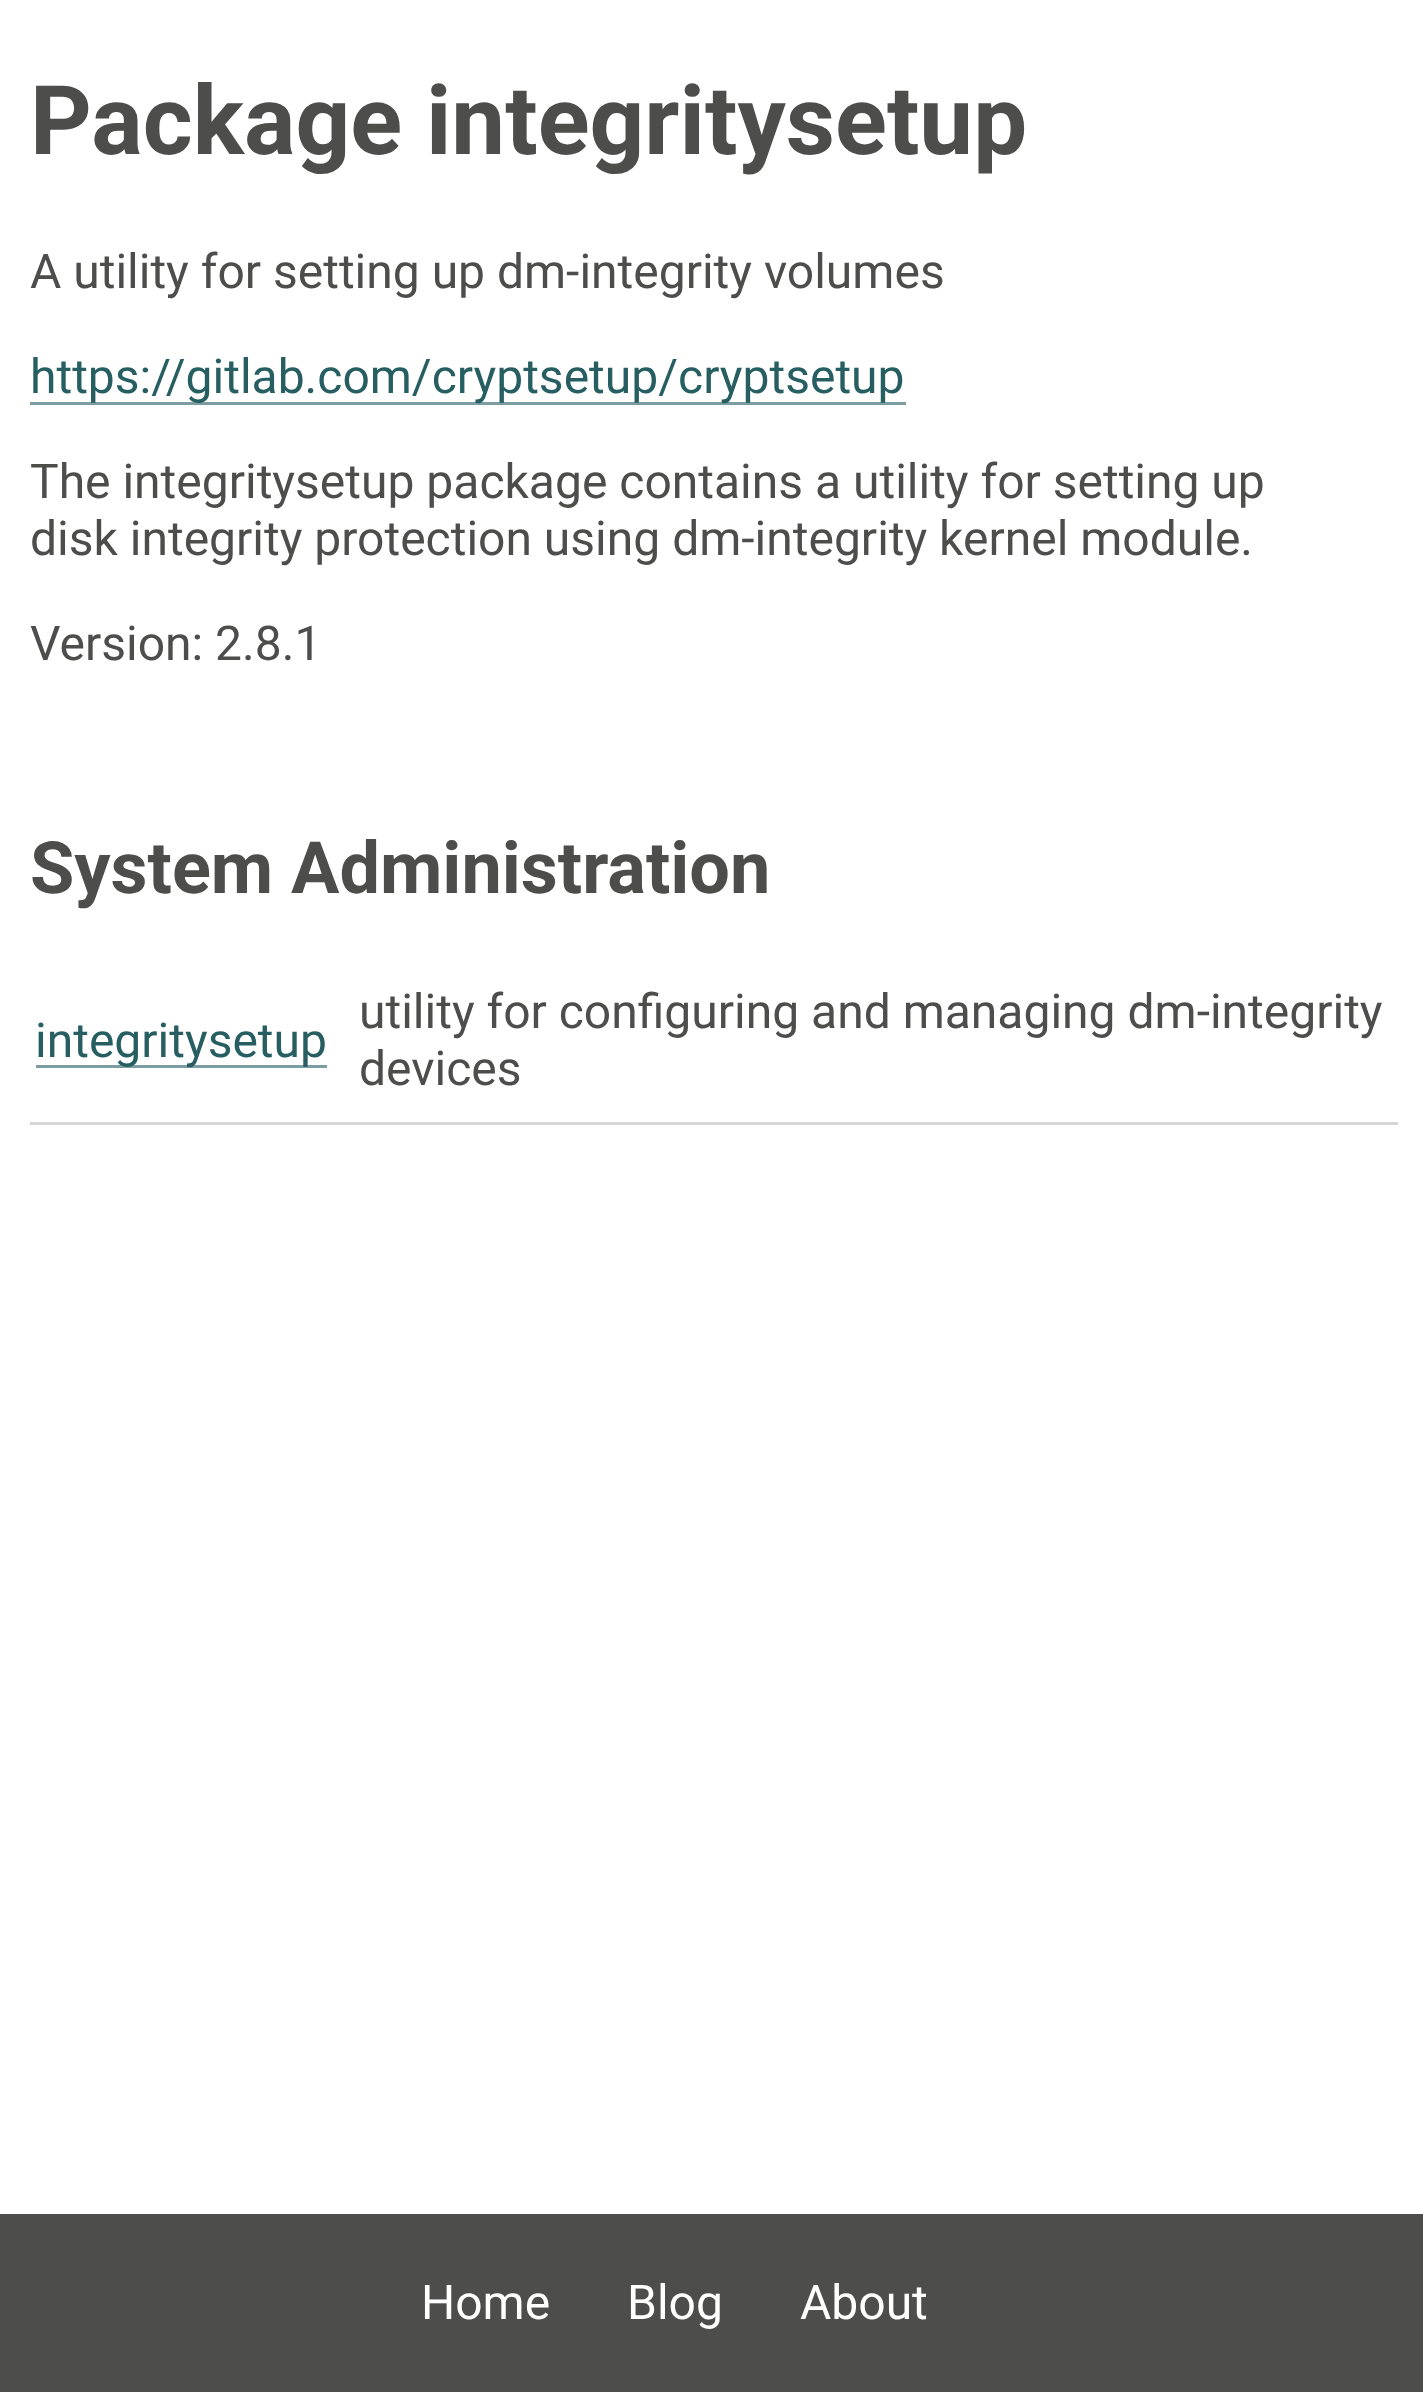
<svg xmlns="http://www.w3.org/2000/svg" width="1423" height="2392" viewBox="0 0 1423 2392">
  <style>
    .t1 { font: bold 96px Roboto; fill: #4d4d4c; }
    .t2 { font: 48px Roboto; fill: #4d4d4c; }
    .t3 { font: 48px Roboto; fill: #265e62; }
    .t4 { font: bold 72px Roboto; fill: #4d4d4c; }
    .t5 { font: 48px Roboto; fill: #fff; }
  </style>
  <rect width="100%" height="100%" fill="#fff"/>
  <text x="30" y="154" class="t1">Package integritysetup</text>
  <text x="30" y="288" class="t2">A utility for setting up dm-integrity volumes</text>
  <rect x="30" y="402" width="876" height="3" fill="#7d9ea1"/>
  <text x="30" y="393" class="t3">https://gitlab.com/cryptsetup/cryptsetup</text>
  <text x="30" y="498" class="t2">The integritysetup package contains a utility for setting up</text>
  <text x="30" y="555" class="t2">disk integrity protection using dm-integrity kernel module.</text>
  <text x="30" y="660" class="t2">Version: 2.8.1</text>
  <text x="30" y="893" class="t4">System Administration</text>
  <rect x="36" y="1065" width="291" height="3" fill="#7d9ea1"/>
  <text x="35" y="1057" class="t3">integritysetup</text>
  <rect x="30" y="1122" width="1368" height="3" fill="#d6d6d6"/>
  <text x="359" y="1028" class="t2">utility for configuring and managing dm-integrity</text>
  <text x="359" y="1085" class="t2">devices</text>
  <rect x="0" y="2214" width="1423" height="178" fill="#4d4d4c"/>
  <text x="421" y="2319" class="t5">Home</text>
  <text x="627" y="2319" class="t5">Blog</text>
  <text x="800" y="2319" class="t5">About</text>
</svg>
